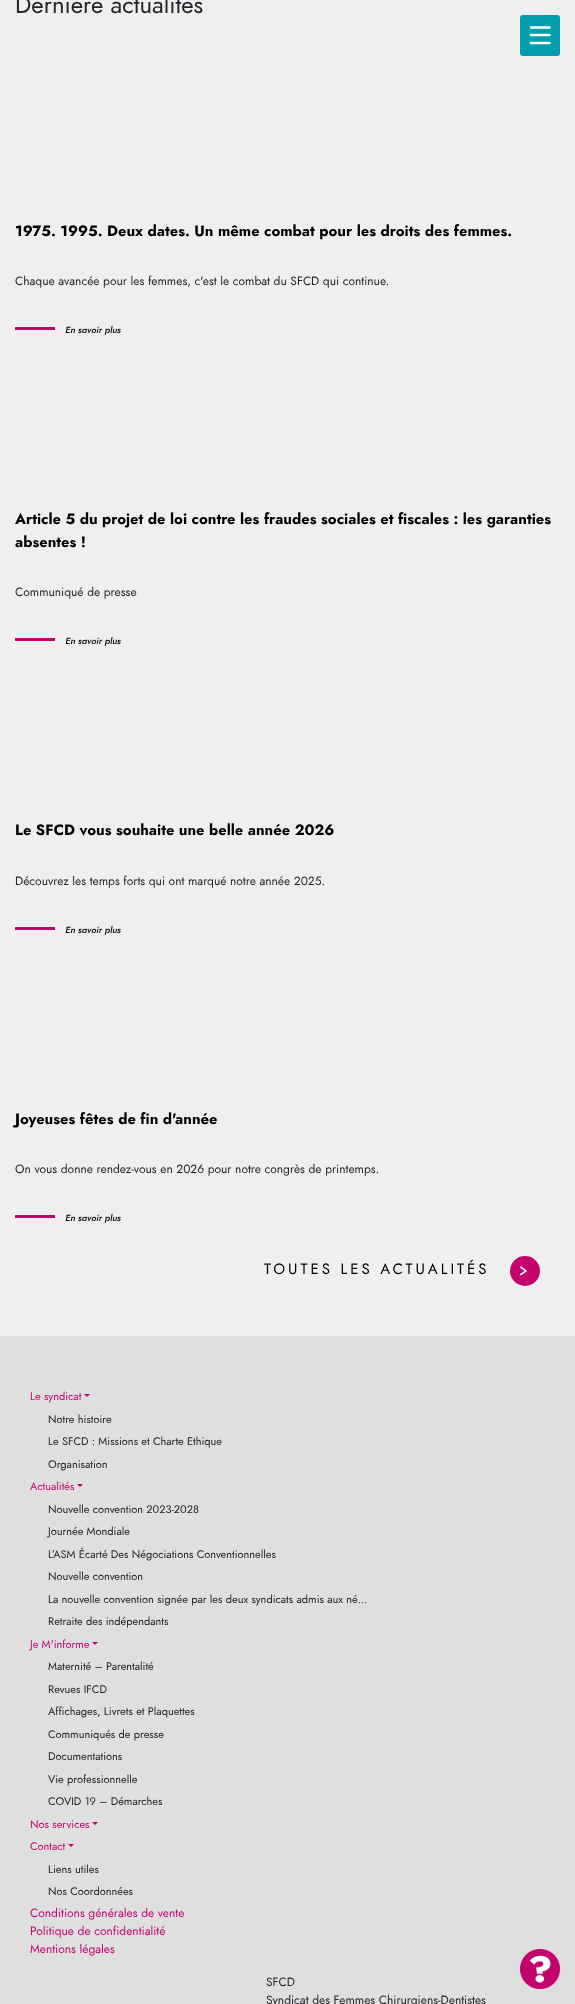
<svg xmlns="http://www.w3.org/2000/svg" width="575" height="2004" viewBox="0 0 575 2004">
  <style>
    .t1 { font: 24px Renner; fill: #212529; }
    .t2 { font: bold 15px Renner; fill: #000; }
    .t3 { font: 12px Renner; fill: #212529; }
    .t4 { font: italic 500 9px Renner; fill: #000; }
    .t5 { font: 15px Renner; letter-spacing: 3px; fill: #000; }
    .t6 { font: 11px Renner; fill: #c4036d; }
    .t7 { font: 11px Renner; fill: #212529; }
    .t8 { font: 12px Renner; fill: #c4036d; }
  </style>
  <rect width="100%" height="100%" fill="#efefef"/>
  <text x="15" y="13" class="t1">Dernière actualités</text>
  <text x="15" y="236" class="t2">1975. 1995. Deux dates. Un même combat pour les droits des femmes.</text>
  <text x="15" y="285" class="t3">Chaque avancée pour les femmes, c'est le combat du SFCD qui continue.</text>
  <rect x="15" y="327" width="40" height="3" fill="#c4036d"/>
  <text x="65" y="333" class="t4">En savoir plus</text>
  <text x="15" y="524" class="t2">Article 5 du projet de loi contre les fraudes sociales et fiscales : les garanties</text>
  <text x="15" y="547" class="t2">absentes !</text>
  <text x="15" y="596" class="t3">Communiqué de presse</text>
  <rect x="15" y="638" width="40" height="3" fill="#c4036d"/>
  <text x="65" y="644" class="t4">En savoir plus</text>
  <text x="15" y="835" class="t2">Le SFCD vous souhaite une belle année 2026</text>
  <text x="15" y="885" class="t3">Découvrez les temps forts qui ont marqué notre année 2025.</text>
  <rect x="15" y="927" width="40" height="3" fill="#c4036d"/>
  <text x="65" y="933" class="t4">En savoir plus</text>
  <text x="15" y="1124" class="t2">Joyeuses fêtes de fin d'année</text>
  <text x="15" y="1173" class="t3">On vous donne rendez-vous en 2026 pour notre congrès de printemps.</text>
  <rect x="15" y="1215" width="40" height="3" fill="#c4036d"/>
  <text x="65" y="1221" class="t4">En savoir plus</text>
  <text x="264" y="1274" class="t5">TOUTES LES ACTUALITÉS</text>
  <circle cx="525" cy="1271" r="15" fill="#c4036d"/>
  <image x="520" y="1266" width="7" height="10" href="images/1.png"/>
  <rect x="520" y="15" width="40" height="41" rx="3" fill="#029ead"/>
  <path d="M531 27.5H549.5M531 35H549.5M531 43H549.5" fill="none" stroke="#fff" stroke-width="2.5" stroke-linecap="round"/>
  <rect x="0" y="1336" width="575" height="668" fill="#dfdfdf"/>
  <text x="30" y="1400" class="t6">Le syndicat</text>
  <path d="M84 1394H90L87 1397Z" fill="#c4036d"/>
  <text x="48" y="1423" class="t7">Notre histoire</text>
  <text x="48" y="1445" class="t7">Le SFCD : Missions et Charte Ethique</text>
  <text x="48" y="1468" class="t7">Organisation</text>
  <text x="30" y="1490" class="t6">Actualités</text>
  <path d="M77 1484H83L80 1487Z" fill="#c4036d"/>
  <text x="48" y="1513" class="t7">Nouvelle convention 2023-2028</text>
  <text x="48" y="1535" class="t7">Journée Mondiale</text>
  <text x="48" y="1558" class="t7">L’ASM Écarté Des Négociations Conventionnelles</text>
  <text x="48" y="1580" class="t7">Nouvelle convention</text>
  <text x="48" y="1603" class="t7">La nouvelle convention signée par les deux syndicats admis aux né...</text>
  <text x="48" y="1625" class="t7">Retraite des indépendants</text>
  <text x="30" y="1648" class="t6">Je M'informe</text>
  <path d="M92 1642H98L95 1645Z" fill="#c4036d"/>
  <text x="48" y="1670" class="t7">Maternité – Parentalité</text>
  <text x="48" y="1693" class="t7">Revues IFCD</text>
  <text x="48" y="1715" class="t7">Affichages, Livrets et Plaquettes</text>
  <text x="48" y="1738" class="t7">Communiqués de presse</text>
  <text x="48" y="1760" class="t7">Documentations</text>
  <text x="48" y="1783" class="t7">Vie professionnelle</text>
  <text x="48" y="1805" class="t7">COVID 19 – Démarches</text>
  <text x="30" y="1828" class="t6">Nos services</text>
  <path d="M92 1822H98L95 1825Z" fill="#c4036d"/>
  <text x="30" y="1850" class="t6">Contact</text>
  <path d="M68 1844H74L71 1847Z" fill="#c4036d"/>
  <text x="48" y="1873" class="t7">Liens utiles</text>
  <text x="48" y="1895" class="t7">Nos Coordonnées</text>
  <text x="30" y="1917" class="t8">Conditions générales de vente</text>
  <text x="30" y="1935" class="t8">Politique de confidentialité</text>
  <text x="30" y="1953" class="t8">Mentions légales</text>
  <text x="266" y="1986" class="t3">SFCD</text>
  <text x="266" y="2004" class="t3">Syndicat des Femmes Chirurgiens-Dentistes</text>
  <image x="520" y="1949" width="40" height="40" href="images/2.png"/>
</svg>
